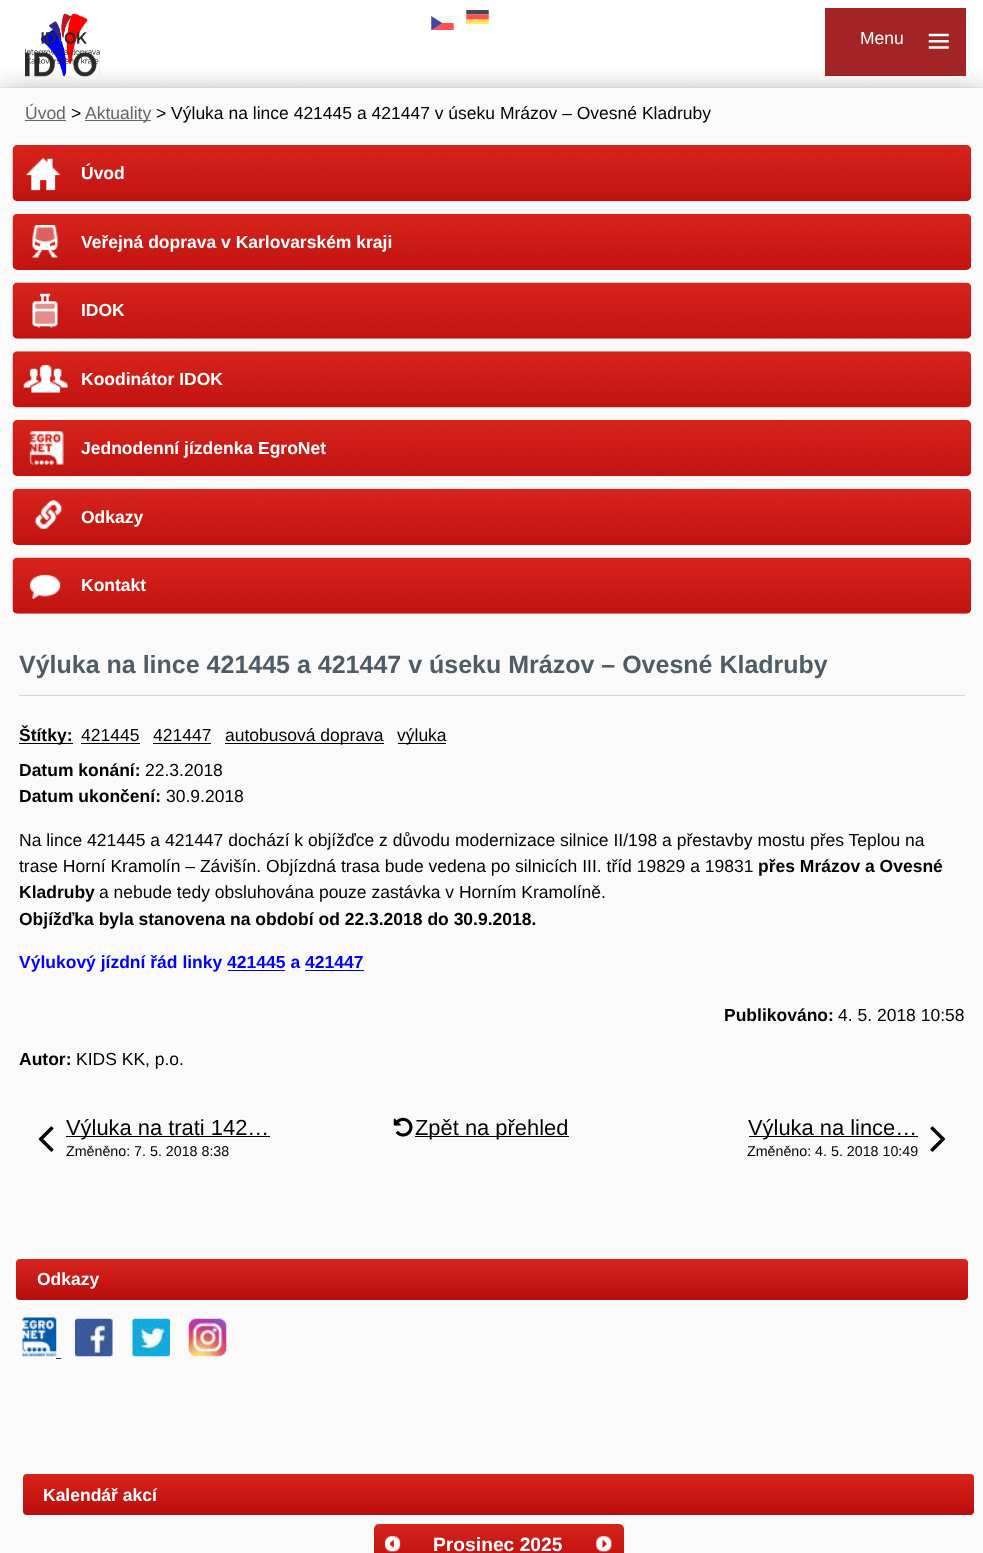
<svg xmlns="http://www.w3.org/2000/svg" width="983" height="1553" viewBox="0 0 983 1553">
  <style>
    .t1 { font: 17.5px Liberation Sans; fill: #fff; }
    .t2 { font: 17.5px Liberation Sans; fill: #666; }
    .t3 { font: 17.5px Liberation Sans; fill: #000; }
    .t4 { font: bold 17.5px Liberation Sans; fill: #fff; }
    .t5 { font: bold 25px Liberation Sans; fill: #4f5c63; }
    .t6 { font: bold 17.5px Liberation Sans; fill: #000; }
    .t7 { font: bold 17.5px Liberation Sans; fill: #00f; }
    .t8 { font: 21.9px Liberation Sans; fill: #000; }
    .t9 { font: 14.25px Liberation Sans; fill: #000; }
    .t10 { font: bold 19.25px Liberation Sans; fill: #fff; }
  </style>
  <defs>
    <linearGradient id="g1" gradientUnits="userSpaceOnUse" x1="492" y1="1259" x2="492" y2="1300"><stop offset="0" stop-color="#d8241c"/><stop offset="1" stop-color="#b80d0d"/></linearGradient>
    <linearGradient id="g2" gradientUnits="userSpaceOnUse" x1="498" y1="1474" x2="498" y2="1515"><stop offset="0" stop-color="#d8241c"/><stop offset="1" stop-color="#b80d0d"/></linearGradient>
    <linearGradient id="g3" gradientUnits="userSpaceOnUse" x1="499" y1="1524" x2="499" y2="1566"><stop offset="0" stop-color="#d8241c"/><stop offset="1" stop-color="#b80d0d"/></linearGradient>
  </defs>
  <rect width="100%" height="100%" fill="#fff"/>
  <image x="0" y="87" width="983" height="1" href="images/6.png"/>
  <rect x="0" y="88" width="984" height="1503" fill="#00000040" filter="blur(12.5px)"/>
  <image x="25" y="13" width="75" height="64" href="images/1.png"/>
  <image x="25" y="13" width="75" height="52" href="images/2.png"/>
  <image x="431" y="16" width="23" height="14" href="images/3.png"/>
  <image x="466" y="10" width="23" height="14" href="images/4.png"/>
  <rect x="825" y="8" width="141" height="68" fill="#a32424"/>
  <text x="860" y="44" class="t1">Menu</text>
  <image x="928" y="33" width="21" height="16" href="images/5.png"/>
  <rect x="0" y="88" width="983" height="1465" fill="#fafafa"/>
  <text x="25" y="119" class="t2">Úvod</text>
  <rect x="25" y="120" width="41" height="1" fill="#666"/>
  <text x="71" y="119" class="t3">&gt;</text>
  <rect x="85" y="120" width="66" height="1" fill="#666"/>
  <text x="85" y="119" class="t2">Aktuality</text>
  <text x="156" y="119" class="t3">&gt; Výluka na lince 421445 a 421447 v úseku Mrázov – Ovesné Kladruby</text>
  <image x="12" y="145" width="960" height="57" href="images/7.png"/>
  <image x="26" y="157" width="35" height="34" href="images/8.png"/>
  <text x="81" y="179" class="t4">Úvod</text>
  <image x="12" y="213" width="960" height="57" href="images/9.png"/>
  <image x="32" y="225" width="26" height="33" href="images/10.png"/>
  <text x="81" y="248" class="t4">Veřejná doprava v Karlovarském kraji</text>
  <image x="12" y="282" width="960" height="57" href="images/11.png"/>
  <image x="32" y="293" width="26" height="35" href="images/12.png"/>
  <text x="81" y="316" class="t4">IDOK</text>
  <image x="12" y="351" width="960" height="57" href="images/13.png"/>
  <image x="23" y="364" width="45" height="29" href="images/14.png"/>
  <text x="81" y="385" class="t4">Koodinátor IDOK</text>
  <image x="12" y="420" width="960" height="57" href="images/15.png"/>
  <image x="29" y="431" width="35" height="34" href="images/16.png"/>
  <text x="81" y="454" class="t4">Jednodenní jízdenka EgroNet</text>
  <image x="12" y="488" width="960" height="57" href="images/17.png"/>
  <image x="34" y="500" width="28" height="29" href="images/18.png"/>
  <text x="81" y="523" class="t4">Odkazy</text>
  <image x="12" y="557" width="960" height="57" href="images/19.png"/>
  <image x="29" y="574" width="32" height="25" href="images/20.png"/>
  <text x="81" y="591" class="t4">Kontakt</text>
  <rect x="19" y="695" width="946" height="1" fill="#d5d5d5"/>
  <text x="19" y="673" class="t5">Výluka na lince 421445 a 421447 v úseku Mrázov – Ovesné Kladruby</text>
  <rect x="19" y="743" width="54" height="1" fill="#000"/>
  <text x="19" y="741" class="t6">Štítky:</text>
  <text x="81" y="741" class="t3">421445</text>
  <rect x="81" y="743" width="59" height="1" fill="#000"/>
  <text x="153" y="741" class="t3">421447</text>
  <rect x="153" y="743" width="58" height="1" fill="#000"/>
  <rect x="225" y="743" width="159" height="1" fill="#000"/>
  <text x="225" y="741" class="t3">autobusová doprava</text>
  <rect x="398" y="743" width="48" height="1" fill="#000"/>
  <text x="397" y="741" class="t3">výluka</text>
  <text x="19" y="776" class="t6">Datum konání:</text>
  <text x="145" y="776" class="t3">22.3.2018</text>
  <text x="19" y="802" class="t6">Datum ukončení:</text>
  <text x="166" y="802" class="t3">30.9.2018</text>
  <text x="19" y="846" class="t3">Na lince 421445 a 421447 dochází k objížďce z důvodu modernizace silnice II/198 a přestavby mostu přes Teplou na</text>
  <text x="19" y="872" class="t3">trase Horní Kramolín – Závišín. Objízdná trasa bude vedena po silnicích III. tříd 19829 a 19831</text>
  <text x="758" y="872" class="t6">přes Mrázov a Ovesné</text>
  <text x="19" y="898" class="t6">Kladruby</text>
  <text x="99" y="898" class="t3">a nebude tedy obsluhována pouze zastávka v Horním Kramolíně.</text>
  <text x="19" y="925" class="t6">Objížďka byla stanovena na období od 22.3.2018 do 30.9.2018.</text>
  <text x="19" y="968" class="t7">Výlukový jízdní řád linky 421445 a 421447</text>
  <rect x="228" y="970" width="57" height="1" fill="#00f"/>
  <rect x="305" y="970" width="59" height="1" fill="#00f"/>
  <text x="724" y="1021" class="t6">Publikováno:</text>
  <text x="838" y="1021" class="t3">4. 5. 2018 10:58</text>
  <text x="19" y="1065" class="t6">Autor:</text>
  <text x="76" y="1065" class="t3">KIDS KK, p.o.</text>
  <image x="38" y="1126" width="16" height="26" href="images/21.png"/>
  <rect x="66" y="1136" width="204" height="1" fill="#000"/>
  <text x="66" y="1135" class="t8">Výluka na trati 142…</text>
  <text x="66" y="1156" class="t9">Změněno: 7. 5. 2018 8:38</text>
  <image x="393" y="1117" width="20" height="20" href="images/22.png"/>
  <rect x="415" y="1136" width="154" height="1" fill="#000"/>
  <text x="415" y="1135" class="t8">Zpět na přehled</text>
  <rect x="749" y="1136" width="169" height="1" fill="#000"/>
  <text x="748" y="1135" class="t8">Výluka na lince…</text>
  <text x="747" y="1156" class="t9">Změněno: 4. 5. 2018 10:49</text>
  <image x="930" y="1126" width="16" height="26" href="images/23.png"/>
  <rect x="16" y="1259" width="952" height="41" rx="4" fill="url(#g1)"/>
  <text x="37" y="1285" class="t4">Odkazy</text>
  <image x="22" y="1317" width="35" height="40" href="images/24.png"/>
  <image x="75" y="1318" width="38" height="39" href="images/25.png"/>
  <image x="132" y="1318" width="38" height="39" href="images/26.png"/>
  <image x="188" y="1318" width="39" height="39" href="images/27.png"/>
  <rect x="56" y="1358" width="5" height="1" fill="#333"/>
  <rect x="23" y="1474" width="951" height="41" rx="4" fill="url(#g2)"/>
  <text x="43" y="1501" class="t4">Kalendář akcí</text>
  <rect x="374" y="1524" width="250" height="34" rx="5" fill="url(#g3)"/>
  <image x="384" y="1536" width="17" height="16" href="images/28.png"/>
  <text x="433" y="1551" class="t10">Prosinec 2025</text>
  <image x="596" y="1536" width="16" height="16" href="images/29.png"/>
</svg>
